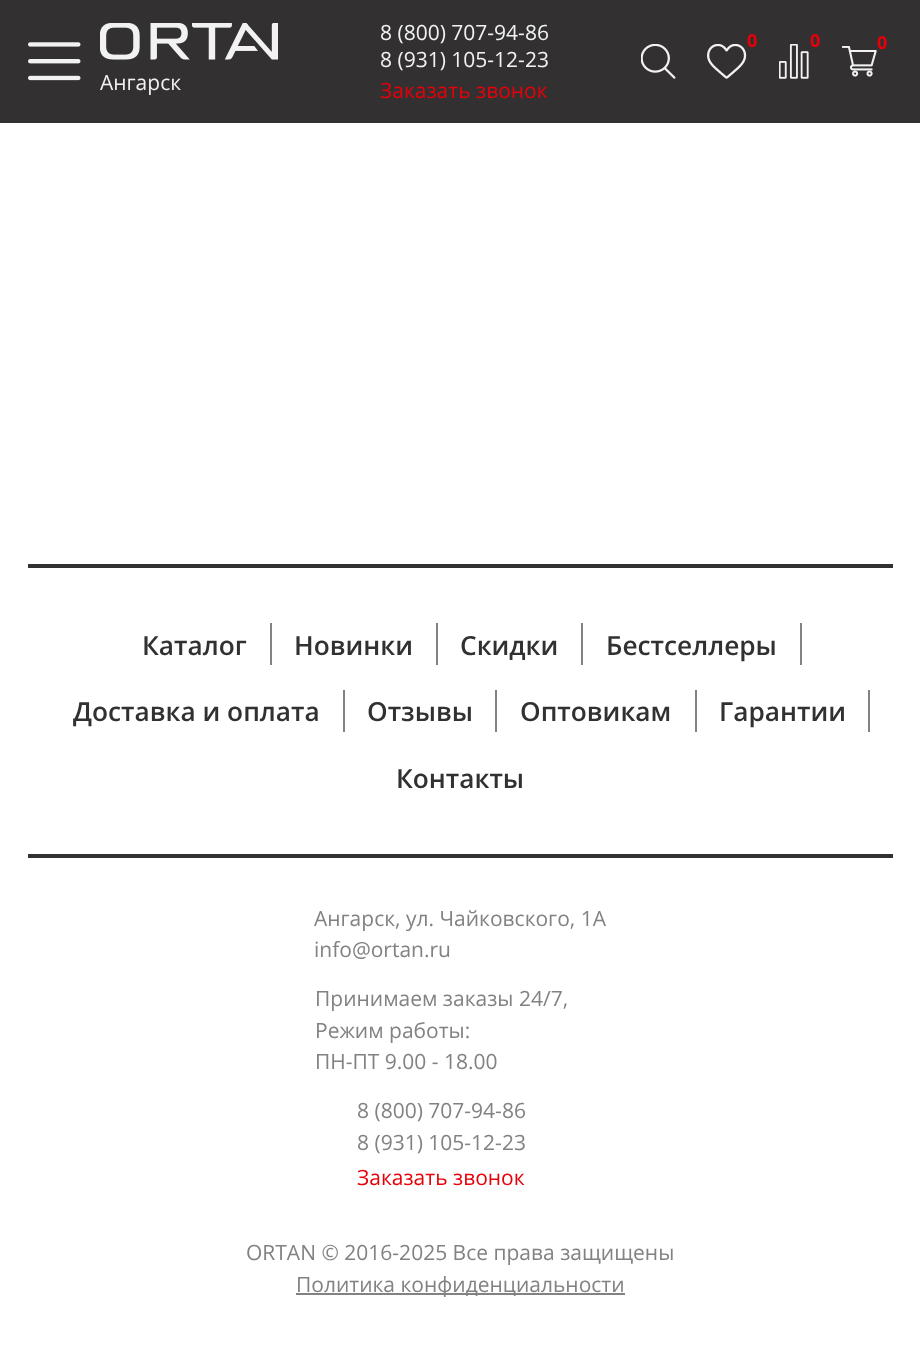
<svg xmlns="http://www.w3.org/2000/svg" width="920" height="1353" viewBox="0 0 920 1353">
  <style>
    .t1 { font: 21px Open Sans; fill: #f2f2f2; }
    .t2 { font: 21px Open Sans; fill: #e6000a; }
    .t3 { font: bold 18px Open Sans; fill: #e6000a; }
    .t4 { font: 600 26.25px Open Sans; fill: #323031; }
    .t5 { font: 21px Open Sans; fill: #828282; }
  </style>
  <rect width="100%" height="100%" fill="#fff"/>
  <rect x="0" y="0" width="920" height="123" fill="#323031"/>
  <image x="28" y="42" width="53" height="39" href="images/1.png"/>
  <text x="380" y="40" class="t1">8 (800) 707-94-86</text>
  <text x="380" y="67" class="t1">8 (931) 105-12-23</text>
  <text x="380" y="98" class="t2">Заказать звонок</text>
  <image x="641" y="44" width="35" height="35" href="images/2.png"/>
  <text x="747" y="47" class="t3">0</text>
  <image x="707" y="44" width="40" height="35" href="images/3.png"/>
  <text x="810" y="47" class="t3">0</text>
  <image x="779" y="44" width="30" height="35" href="images/4.png"/>
  <text x="877" y="49" class="t3">0</text>
  <image x="842" y="46" width="35" height="31" href="images/5.png"/>
  <image x="100" y="23" width="178" height="37" href="images/6.png"/>
  <text x="100" y="90" class="t1">Ангарск</text>
  <rect x="28" y="564" width="865" height="4" fill="#323031"/>
  <rect x="28" y="854" width="865" height="4" fill="#323031"/>
  <rect x="270" y="623" width="2" height="42" fill="#828282"/>
  <text x="142" y="655" class="t4">Каталог</text>
  <rect x="436" y="623" width="2" height="42" fill="#828282"/>
  <text x="294" y="655" class="t4">Новинки</text>
  <rect x="581" y="623" width="2" height="42" fill="#828282"/>
  <text x="460" y="655" class="t4">Скидки</text>
  <rect x="800" y="623" width="2" height="42" fill="#828282"/>
  <text x="606" y="655" class="t4">Бестселлеры</text>
  <rect x="343" y="690" width="2" height="42" fill="#828282"/>
  <text x="73" y="721" class="t4">Доставка и оплата</text>
  <rect x="495" y="690" width="2" height="42" fill="#828282"/>
  <text x="367" y="721" class="t4">Отзывы</text>
  <rect x="695" y="690" width="2" height="42" fill="#828282"/>
  <text x="520" y="721" class="t4">Оптовикам</text>
  <rect x="868" y="690" width="2" height="42" fill="#828282"/>
  <text x="719" y="721" class="t4">Гарантии</text>
  <text x="396" y="788" class="t4">Контакты</text>
  <text x="314" y="926" class="t5">Ангарск, ул. Чайковского, 1А</text>
  <text x="314" y="957" class="t5">info@ortan.ru</text>
  <text x="315" y="1006" class="t5">Принимаем заказы 24/7,</text>
  <text x="315" y="1038" class="t5">Режим работы:</text>
  <text x="315" y="1069" class="t5">ПН-ПТ 9.00 - 18.00</text>
  <text x="357" y="1118" class="t5">8 (800) 707-94-86</text>
  <text x="357" y="1150" class="t5">8 (931) 105-12-23</text>
  <text x="357" y="1185" class="t2">Заказать звонок</text>
  <text x="246" y="1260" class="t5">ORTAN © 2016-2025 Все права защищены</text>
  <rect x="296" y="1293" width="329" height="2" fill="#828282"/>
  <text x="296" y="1292" class="t5">Политика конфиденциальности</text>
</svg>
